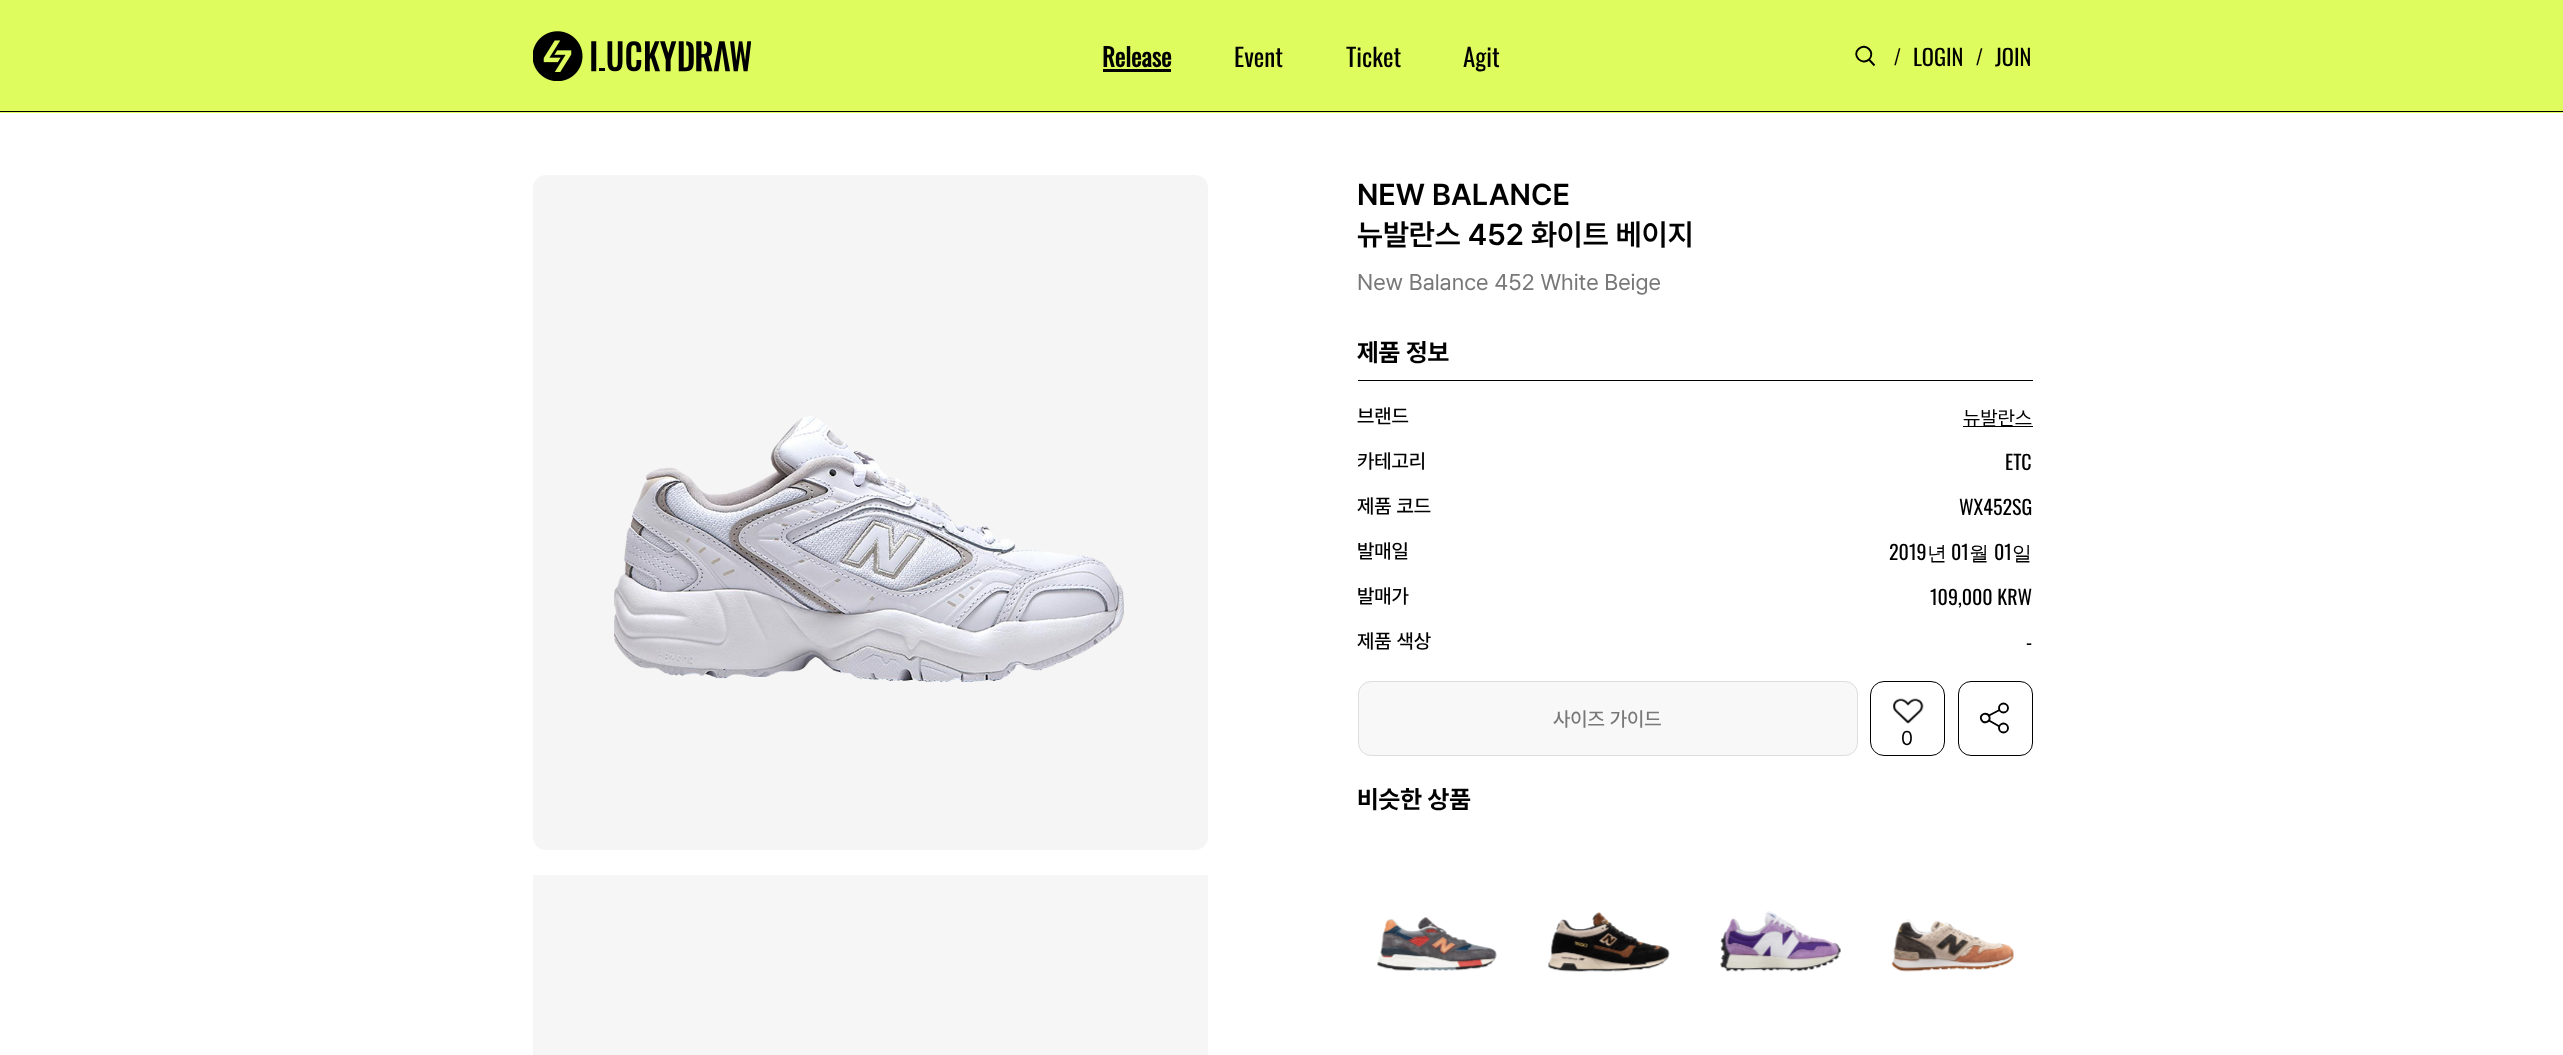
<svg xmlns="http://www.w3.org/2000/svg" width="2563" height="1055" viewBox="0 0 2563 1055">
  <style>
    .t1 { font: bold 25px Oswald; fill: #000; }
    .t2 { font: 25px Oswald; fill: #000; }
    .t3 { font: 20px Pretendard; fill: #000; }
    .t4 { font: 22.5px Oswald; fill: #000; }
    .t5 { font: 600 30px Pretendard; fill: #000; }
    .t6 { font: 22.5px Pretendard; fill: #787878; }
    .t7 { font: bold 25px Pretendard; fill: #000; }
    .t8 { font: 500 20px Pretendard; fill: #000; }
    .t9 { font: 20px Oswald; fill: #000; }
    .t10 { font: 500 20px WenQuanYi Zen Hei; fill: #000; }
    .t11 { font: 500 20px Pretendard; fill: #787878; }
  </style>
  <rect width="100%" height="100%" fill="#fff"/>
  <rect x="0" y="0" width="2563" height="113" fill="#dffc5f"/>
  <rect x="0" y="111" width="2563" height="1" fill="#000"/>
  <image x="533" y="31" width="218" height="50" href="images/1.png"/>
  <text x="1102" y="67" class="t1">Release</text>
  <rect x="1103" y="69" width="68" height="3" fill="#000"/>
  <text x="1234" y="67" class="t2">Event</text>
  <text x="1346" y="67" class="t2">Ticket</text>
  <text x="1463" y="67" class="t2">Agit</text>
  <path d="M1858.5 49C1865.5 42 1876 52.5 1869 59.5C1862 66 1851.5 55.5 1858.5 49ZM1869 59.5L1874.5 65.5" fill="none" stroke="#000" stroke-width="1.9"/>
  <text x="1894" y="63" class="t3">/</text>
  <text x="1913" y="66" class="t4">LOGIN</text>
  <text x="1976" y="63" class="t3">/</text>
  <text x="1995" y="66" class="t4">JOIN</text>
  <rect x="533" y="175" width="675" height="675" rx="13" fill="#f5f5f5"/>
  <image x="614" y="416" width="510" height="266" href="images/2.png"/>
  <rect x="533" y="875" width="675" height="180" fill="#f6f6f6"/>
  <text x="1357" y="205" class="t5">NEW BALANCE</text>
  <text x="1357" y="245" class="t5">뉴발란스 452 화이트 베이지</text>
  <text x="1357" y="290" class="t6">New Balance 452 White Beige</text>
  <text x="1357" y="361" class="t7">제품 정보</text>
  <rect x="1358" y="380" width="675" height="1" fill="#000"/>
  <text x="1357" y="423" class="t8">브랜드</text>
  <rect x="1963" y="426" width="70" height="1" fill="#000"/>
  <text x="1963" y="425" class="t3">뉴발란스</text>
  <text x="1357" y="468" class="t8">카테고리</text>
  <text x="2005" y="470" class="t9">ETC</text>
  <text x="1357" y="513" class="t8">제품 코드</text>
  <text x="1959" y="515" class="t9">WX452SG</text>
  <text x="1357" y="558" class="t8">발매일</text>
  <text x="1889" y="560" class="t9">2019</text>
  <text x="1927" y="560" class="t10">년</text>
  <text x="1951" y="560" class="t9">01</text>
  <text x="1969" y="560" class="t10">월</text>
  <text x="1994" y="560" class="t9">01</text>
  <text x="2012" y="560" class="t10">일</text>
  <text x="1357" y="603" class="t8">발매가</text>
  <text x="1930" y="605" class="t9">109,000 KRW</text>
  <text x="1357" y="648" class="t8">제품 색상</text>
  <text x="2026" y="650" class="t9">-</text>
  <rect x="1358.5" y="681.5" width="499" height="74" rx="12.5" fill="#f8f8f8" stroke="#ddd"/>
  <text x="1553" y="726" class="t11">사이즈 가이드</text>
  <rect x="1958.5" y="681.5" width="74" height="74" rx="12.5" fill="none" stroke="#000"/>
  <path d="M1989.5 717C1991 722.5 1982.5 724.5 1981 719C1979.5 713.5 1988 711.5 1989.5 717Z" fill="none" stroke="#000" stroke-width="1.9"/>
  <circle cx="2003.5" cy="708" r="4.5" fill="none" stroke="#000" stroke-width="1.9"/>
  <circle cx="2003.5" cy="728" r="4.5" fill="none" stroke="#000" stroke-width="1.9"/>
  <path d="M1989 715.5L1999.5 710M1989 720.5L1999.5 726.5" fill="none" stroke="#000" stroke-width="1.9"/>
  <rect x="1870.5" y="681.5" width="74" height="74" rx="13.5" fill="none" stroke="#000"/>
  <image x="1892" y="698" width="32" height="26" href="images/3.png"/>
  <text x="1901" y="745" class="t3">0</text>
  <text x="1357" y="808" class="t7">비슷한 상품</text>
  <image x="1377" y="917" width="120" height="54" href="images/4.png"/>
  <image x="1548" y="912" width="122" height="60" href="images/5.png"/>
  <image x="1720" y="911" width="121" height="61" href="images/6.png"/>
  <image x="1891" y="919" width="123" height="53" href="images/7.png"/>
</svg>
